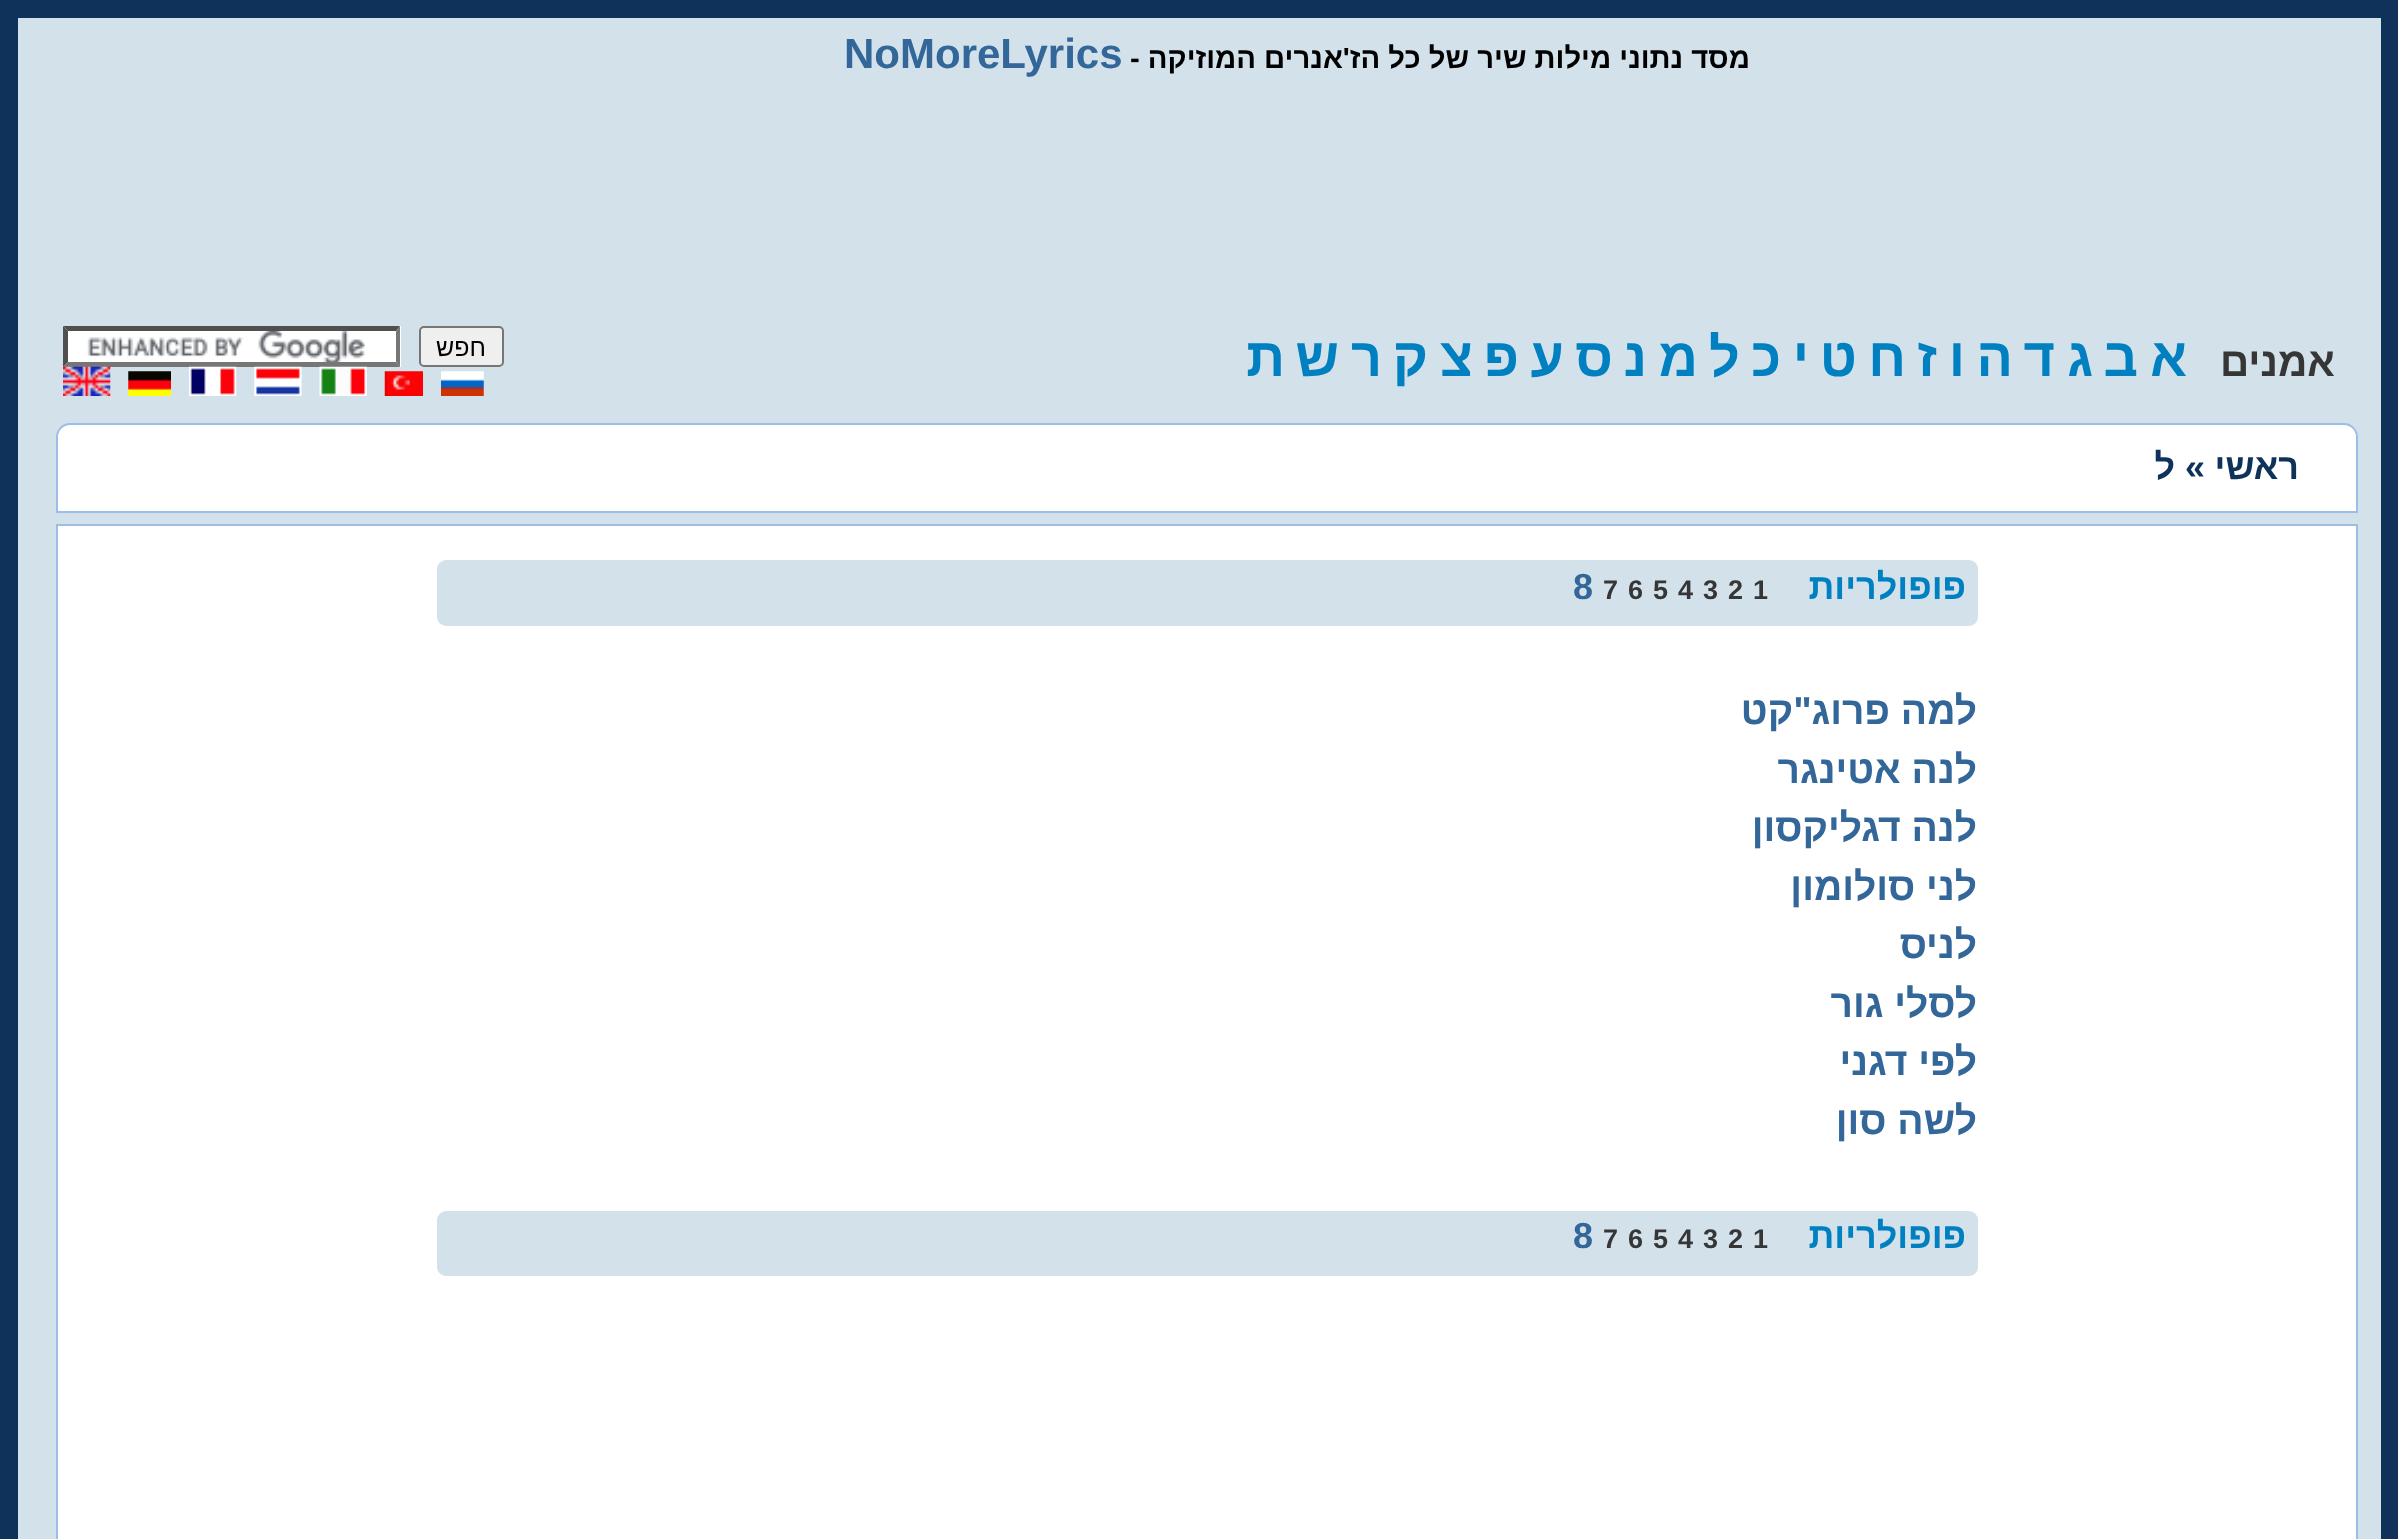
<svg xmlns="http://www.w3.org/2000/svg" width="2398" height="1539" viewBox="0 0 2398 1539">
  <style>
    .t1 { font: bold 29.25px Liberation Sans; direction: rtl; fill: #000; }
    .t2 { font: bold 29.25px Liberation Sans; fill: #000; }
    .t3 { font: bold 42px Liberation Sans; fill: #369; }
    .t4 { font: bold 40.5px Liberation Sans; direction: rtl; fill: #363636; }
    .t5 { font: bold 54px Liberation Sans; direction: rtl; fill: #0080c1; }
    .t6 { font: 25px Liberation Sans; direction: rtl; fill: #000; }
    .t7 { font: bold 36px Liberation Sans; direction: rtl; fill: #0e3259; }
    .t8 { font: bold 36px Liberation Sans; direction: rtl; fill: #0080c1; }
    .t9 { font: bold 27px Liberation Sans; fill: #363636; }
    .t10 { font: bold 36px Liberation Sans; fill: #369; }
    .t11 { font: bold 39px Liberation Sans; direction: rtl; fill: #369; }
  </style>
  <rect width="100%" height="100%" fill="#0e3259"/>
  <rect x="18" y="18" width="2363" height="1521" fill="#d3e2ea"/>
  <text x="1750" y="68" class="t1">מסד נתוני מילות שיר של כל הז'אנרים המוזיקה</text>
  <text x="1130" y="68" class="t2">-</text>
  <text x="844" y="68" class="t3">NoMoreLyrics</text>
  <text x="2335" y="376" class="t4">אמנים</text>
  <text x="2187" y="376" class="t5">א</text>
  <text x="2138" y="376" class="t5">ב</text>
  <text x="2093" y="376" class="t5">ג</text>
  <text x="2055" y="376" class="t5">ד</text>
  <text x="2013" y="376" class="t5">ה</text>
  <text x="1965" y="376" class="t5">ו</text>
  <text x="1937" y="376" class="t5">ז</text>
  <text x="1906" y="376" class="t5">ח</text>
  <text x="1857" y="376" class="t5">ט</text>
  <text x="1809" y="376" class="t5">י</text>
  <text x="1781" y="376" class="t5">כ</text>
  <text x="1740" y="376" class="t5">ל</text>
  <text x="1698" y="376" class="t5">מ</text>
  <text x="1647" y="376" class="t5">נ</text>
  <text x="1613" y="376" class="t5">ס</text>
  <text x="1564" y="376" class="t5">ע</text>
  <text x="1519" y="376" class="t5">פ</text>
  <text x="1473" y="376" class="t5">צ</text>
  <text x="1428" y="376" class="t5">ק</text>
  <text x="1382" y="376" class="t5">ר</text>
  <text x="1339" y="376" class="t5">ש</text>
  <text x="1285" y="376" class="t5">ת</text>
  <rect x="420" y="327" width="83" height="39" rx="4" fill="#efefef" stroke="#767676" stroke-width="2"/>
  <text x="486" y="356" class="t6">חפש</text>
  <rect x="63" y="326" width="338" height="41" fill="#fff"/>
  <image x="87" y="331" width="278" height="31" href="images/1.png"/>
  <path d="M63 326H400L396 331H68Z" fill="#4f4f4f"/>
  <path d="M400 326V367L396 362V331Z" fill="#767676"/>
  <path d="M400 367H63L68 362H396Z" fill="#767676"/>
  <path d="M63 367V326L68 331V362Z" fill="#4f4f4f"/>
  <image x="441" y="371" width="43" height="25" href="images/2.png"/>
  <image x="384" y="371" width="39" height="25" href="images/3.png"/>
  <image x="319" y="366" width="48" height="30" href="images/4.png"/>
  <image x="254" y="366" width="48" height="30" href="images/5.png"/>
  <image x="189" y="366" width="48" height="30" href="images/6.png"/>
  <image x="128" y="371" width="43" height="25" href="images/7.png"/>
  <image x="63" y="366" width="48" height="30" href="images/8.png"/>
  <path d="M70 424H2344C2351 424 2357 430 2357 437V512H57V437C57 430 63 424 70 424Z" fill="#fff" stroke="#9cbee6" stroke-width="2"/>
  <text x="2299" y="479" class="t7">ראשי</text>
  <text x="2205" y="479" class="t7">» ל</text>
  <rect x="57" y="525" width="2300" height="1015" fill="#fff" stroke="#9cbee6" stroke-width="2"/>
  <rect x="437" y="560" width="1541" height="66" rx="9" fill="#d3e2ea"/>
  <text x="1966" y="599" class="t8">פופולריות</text>
  <text x="1753" y="599" class="t9">1</text>
  <text x="1728" y="599" class="t9">2</text>
  <text x="1703" y="599" class="t9">3</text>
  <text x="1678" y="599" class="t9">4</text>
  <text x="1653" y="599" class="t9">5</text>
  <text x="1628" y="599" class="t9">6</text>
  <text x="1603" y="599" class="t9">7</text>
  <text x="1573" y="599" class="t10">8</text>
  <text x="1977" y="724" class="t11">למה פרוג"קט</text>
  <text x="1977" y="783" class="t11">לנה אטינגר</text>
  <text x="1977" y="841" class="t11">לנה דגליקסון</text>
  <text x="1977" y="900" class="t11">לני סולומון</text>
  <text x="1977" y="958" class="t11">לניס</text>
  <text x="1977" y="1017" class="t11">לסלי גור</text>
  <text x="1977" y="1075" class="t11">לפי דגני</text>
  <text x="1977" y="1134" class="t11">לשה סון</text>
  <rect x="437" y="1211" width="1541" height="65" rx="9" fill="#d3e2ea"/>
  <text x="1966" y="1248" class="t8">פופולריות</text>
  <text x="1753" y="1248" class="t9">1</text>
  <text x="1728" y="1248" class="t9">2</text>
  <text x="1703" y="1248" class="t9">3</text>
  <text x="1678" y="1248" class="t9">4</text>
  <text x="1653" y="1248" class="t9">5</text>
  <text x="1628" y="1248" class="t9">6</text>
  <text x="1603" y="1248" class="t9">7</text>
  <text x="1573" y="1248" class="t10">8</text>
</svg>
